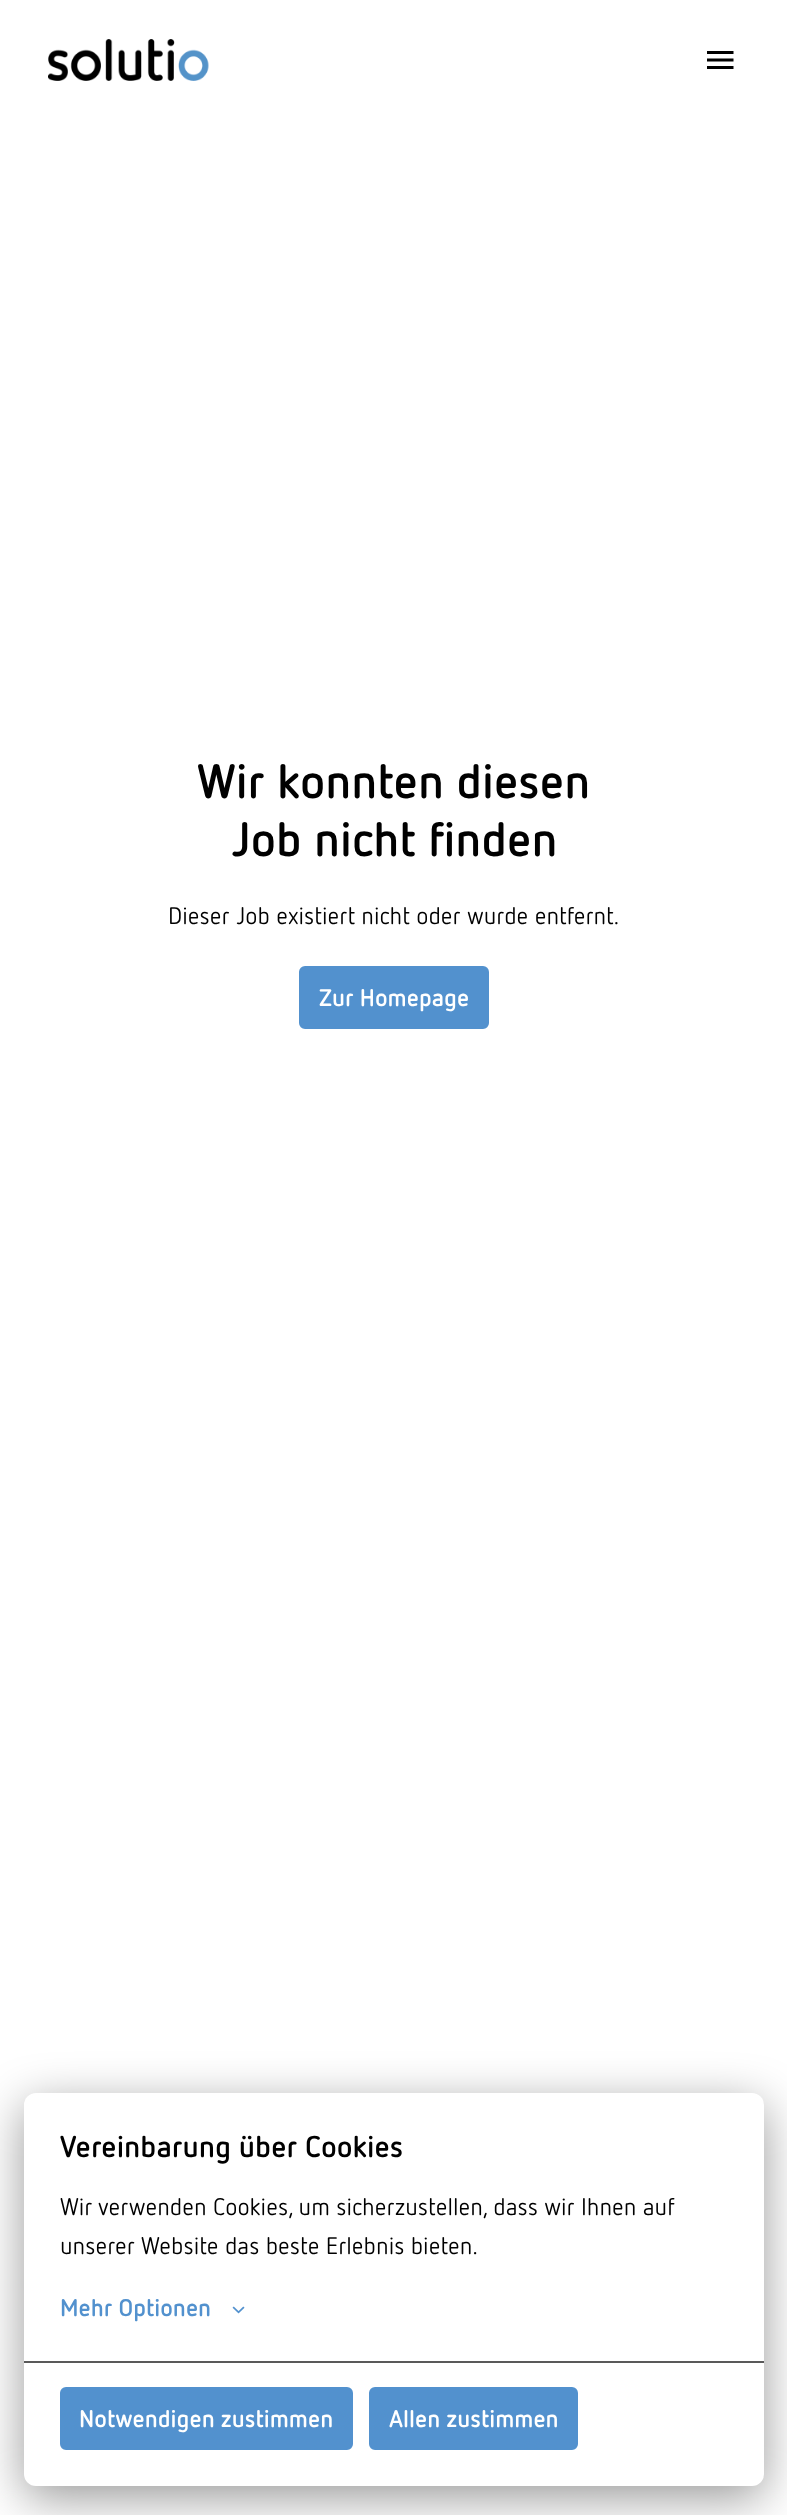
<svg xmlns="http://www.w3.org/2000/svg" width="787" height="2515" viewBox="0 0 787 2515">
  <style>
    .t1 { font: bold 48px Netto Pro; fill: #000; }
    .t2 { font: 24px Netto Pro; fill: #000; }
    .t3 { font: bold 24px Netto Pro; fill: #fff; }
    .t4 { font: bold 30px Netto Pro; fill: #000; }
    .t5 { font: bold 24px Netto Pro; fill: #5291ce; }
  </style>
  <rect width="100%" height="100%" fill="#fff"/>
  <image x="48" y="39" width="161" height="42" href="images/1.png"/>
  <image x="707" y="51" width="27" height="18" href="images/2.png"/>
  <text x="197" y="798" class="t1">Wir konnten diesen</text>
  <text x="231" y="856" class="t1">Job nicht finden</text>
  <text x="168" y="924" class="t2">Dieser Job existiert nicht oder wurde entfernt.</text>
  <rect x="300" y="967" width="188" height="61" rx="5" fill="#5291ce" stroke="#5291ce" stroke-width="2"/>
  <text x="319" y="1006" class="t3">Zur Homepage</text>
  <rect x="24" y="2105" width="740" height="393" rx="12" fill="#00000066" filter="blur(24px)"/>
  <rect x="24" y="2093" width="740" height="393" rx="12" fill="#fff"/>
  <text x="60" y="2157" class="t4">Vereinbarung über Cookies</text>
  <text x="60" y="2215" class="t2">Wir verwenden Cookies, um sicherzustellen, dass wir Ihnen auf</text>
  <text x="60" y="2254" class="t2">unserer Website das beste Erlebnis bieten.</text>
  <text x="60" y="2316" class="t5">Mehr Optionen</text>
  <image x="232" y="2306" width="13" height="8" href="images/3.png"/>
  <rect x="24" y="2361" width="740" height="2" fill="#595959"/>
  <rect x="61" y="2388" width="291" height="61" rx="5" fill="#5291ce" stroke="#5291ce" stroke-width="2"/>
  <text x="79" y="2427" class="t3">Notwendigen zustimmen</text>
  <rect x="370" y="2388" width="207" height="61" rx="5" fill="#5291ce" stroke="#5291ce" stroke-width="2"/>
  <text x="389" y="2427" class="t3">Allen zustimmen</text>
</svg>
